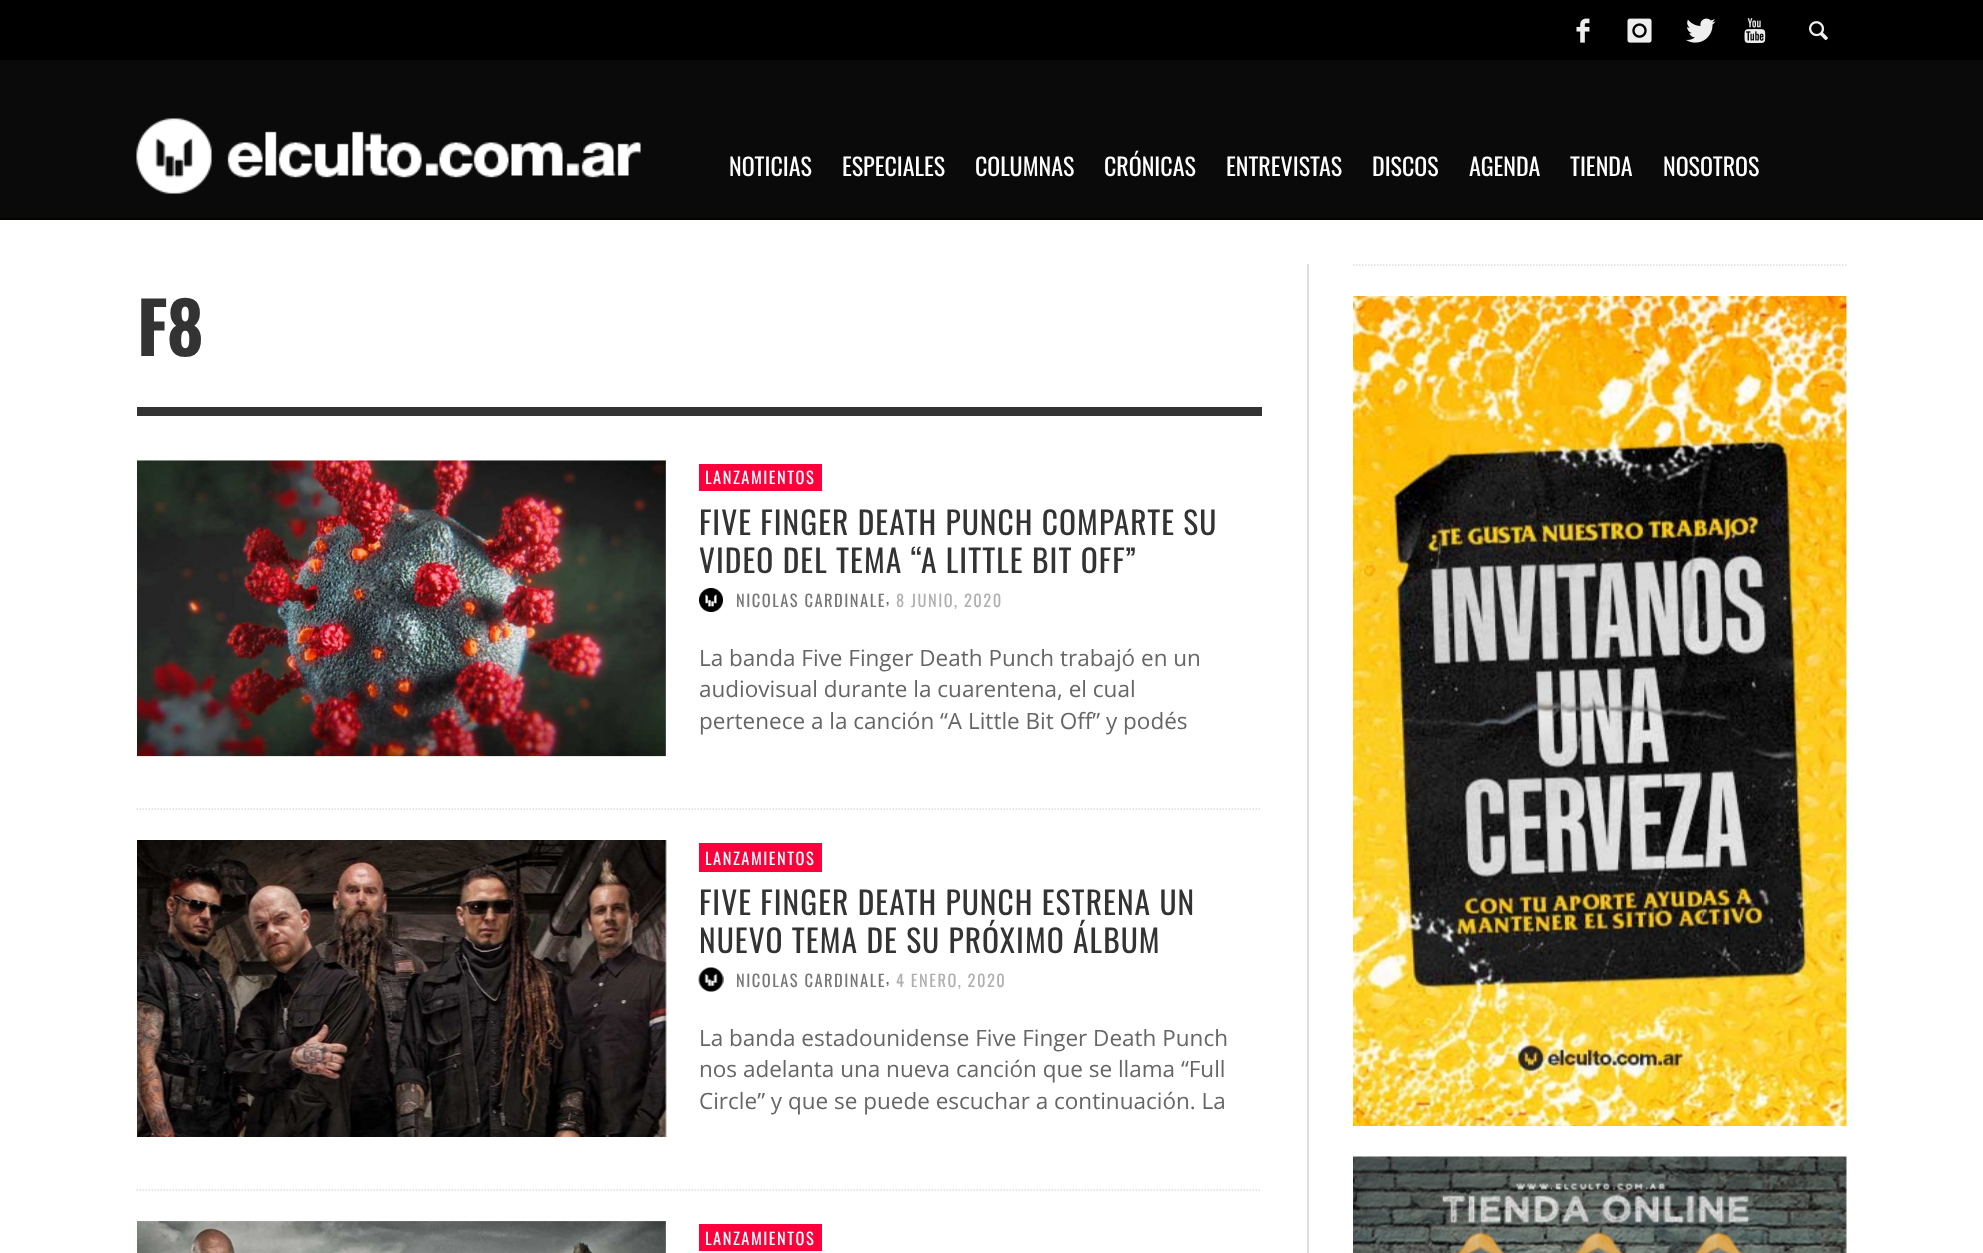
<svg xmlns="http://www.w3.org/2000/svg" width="1983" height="1253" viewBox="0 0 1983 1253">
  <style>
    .t1 { font: 24px Oswald; fill: #fff; }
    .t2 { font: bold 71px Oswald; letter-spacing: -1px; fill: #333; }
    .t3 { font: 16.5px Oswald; letter-spacing: 1.5px; fill: #fff; }
    .t4 { font: 31.5px Oswald; letter-spacing: 1.05px; fill: #333; }
    .t5 { font: 16.5px Oswald; letter-spacing: 1.5px; fill: #777; }
    .t6 { font: 16.5px Oswald; letter-spacing: 1.5px; fill: #666; }
    .t7 { font: 16.5px Oswald; letter-spacing: 1.5px; fill: #b0b0b0; }
    .t8 { font: 22.5px Open Sans; fill: #666; }
  </style>
  <rect width="100%" height="100%" fill="#fff"/>
  <rect x="0" y="0" width="1983" height="60" fill="#000"/>
  <image x="1576" y="18" width="14" height="25" href="images/1.png"/>
  <image x="1627" y="18" width="25" height="25" href="images/2.png"/>
  <image x="1686" y="18" width="30" height="25" href="images/3.png"/>
  <image x="1744" y="18" width="22" height="25" href="images/4.png"/>
  <image x="1809" y="21" width="19" height="20" href="images/5.png"/>
  <rect x="0" y="60" width="1983" height="158" fill="#0a0a0a"/>
  <image x="136" y="118" width="505" height="76" href="images/6.png"/>
  <rect x="0" y="218" width="1983" height="2" fill="#0a0000"/>
  <text x="729" y="176" class="t1">NOTICIAS</text>
  <text x="842" y="176" class="t1">ESPECIALES</text>
  <text x="975" y="176" class="t1">COLUMNAS</text>
  <text x="1104" y="176" class="t1">CRÓNICAS</text>
  <text x="1226" y="176" class="t1">ENTREVISTAS</text>
  <text x="1372" y="176" class="t1">DISCOS</text>
  <text x="1469" y="176" class="t1">AGENDA</text>
  <text x="1570" y="176" class="t1">TIENDA</text>
  <text x="1663" y="176" class="t1">NOSOTROS</text>
  <text x="137" y="356" class="t2">F8</text>
  <rect x="137" y="407" width="1125" height="9" fill="#333"/>
  <path d="M136.5 809H1261.5" fill="none" stroke="#ddd" stroke-width="1.5" stroke-dasharray="1.5 1.5"/>
  <image x="137" y="460" width="529" height="297" href="images/7.png"/>
  <rect x="699" y="464" width="123" height="27" fill="#fd003c"/>
  <text x="705" y="484" class="t3">LANZAMIENTOS</text>
  <text x="699" y="535" class="t4">FIVE FINGER DEATH PUNCH COMPARTE SU</text>
  <text x="699" y="573" class="t4">VIDEO DEL TEMA “A LITTLE BIT OFF”</text>
  <image x="699" y="588" width="24" height="24" href="images/8.png"/>
  <text x="736" y="607" class="t5">NICOLAS CARDINALE</text>
  <text x="886" y="604" class="t6">,</text>
  <text x="896" y="607" class="t7">8 JUNIO, 2020</text>
  <text x="699" y="666" class="t8">La banda Five Finger Death Punch trabajó en un</text>
  <text x="699" y="697" class="t8">audiovisual durante la cuarentena, el cual</text>
  <text x="699" y="729" class="t8">pertenece a la canción “A Little Bit Off” y podés</text>
  <path d="M136.5 1190H1261.5" fill="none" stroke="#ddd" stroke-width="1.5" stroke-dasharray="1.5 1.5"/>
  <image x="137" y="840" width="530" height="297" href="images/9.png"/>
  <rect x="699" y="843" width="123" height="29" fill="#fd003c"/>
  <text x="705" y="865" class="t3">LANZAMIENTOS</text>
  <text x="699" y="915" class="t4">FIVE FINGER DEATH PUNCH ESTRENA UN</text>
  <text x="699" y="953" class="t4">NUEVO TEMA DE SU PRÓXIMO ÁLBUM</text>
  <image x="698" y="967" width="26" height="25" href="images/10.png"/>
  <text x="736" y="987" class="t5">NICOLAS CARDINALE</text>
  <text x="886" y="984" class="t6">,</text>
  <text x="896" y="987" class="t7">4 ENERO, 2020</text>
  <text x="699" y="1046" class="t8">La banda estadounidense Five Finger Death Punch</text>
  <text x="699" y="1077" class="t8">nos adelanta una nueva canción que se llama “Full</text>
  <text x="699" y="1109" class="t8">Circle” y que se puede escuchar a continuación. La</text>
  <image x="137" y="1221" width="529" height="32" href="images/11.png"/>
  <rect x="699" y="1224" width="123" height="27" fill="#fd003c"/>
  <text x="705" y="1245" class="t3">LANZAMIENTOS</text>
  <rect x="1307" y="264" width="2" height="989" fill="#ddd"/>
  <path d="M1353 265H1846.5" fill="none" stroke="#ddd" stroke-width="1.5" stroke-dasharray="1.5 1.5"/>
  <image x="1353" y="296" width="494" height="830" href="images/12.png"/>
  <image x="1353" y="1156" width="494" height="97" href="images/13.png"/>
</svg>
